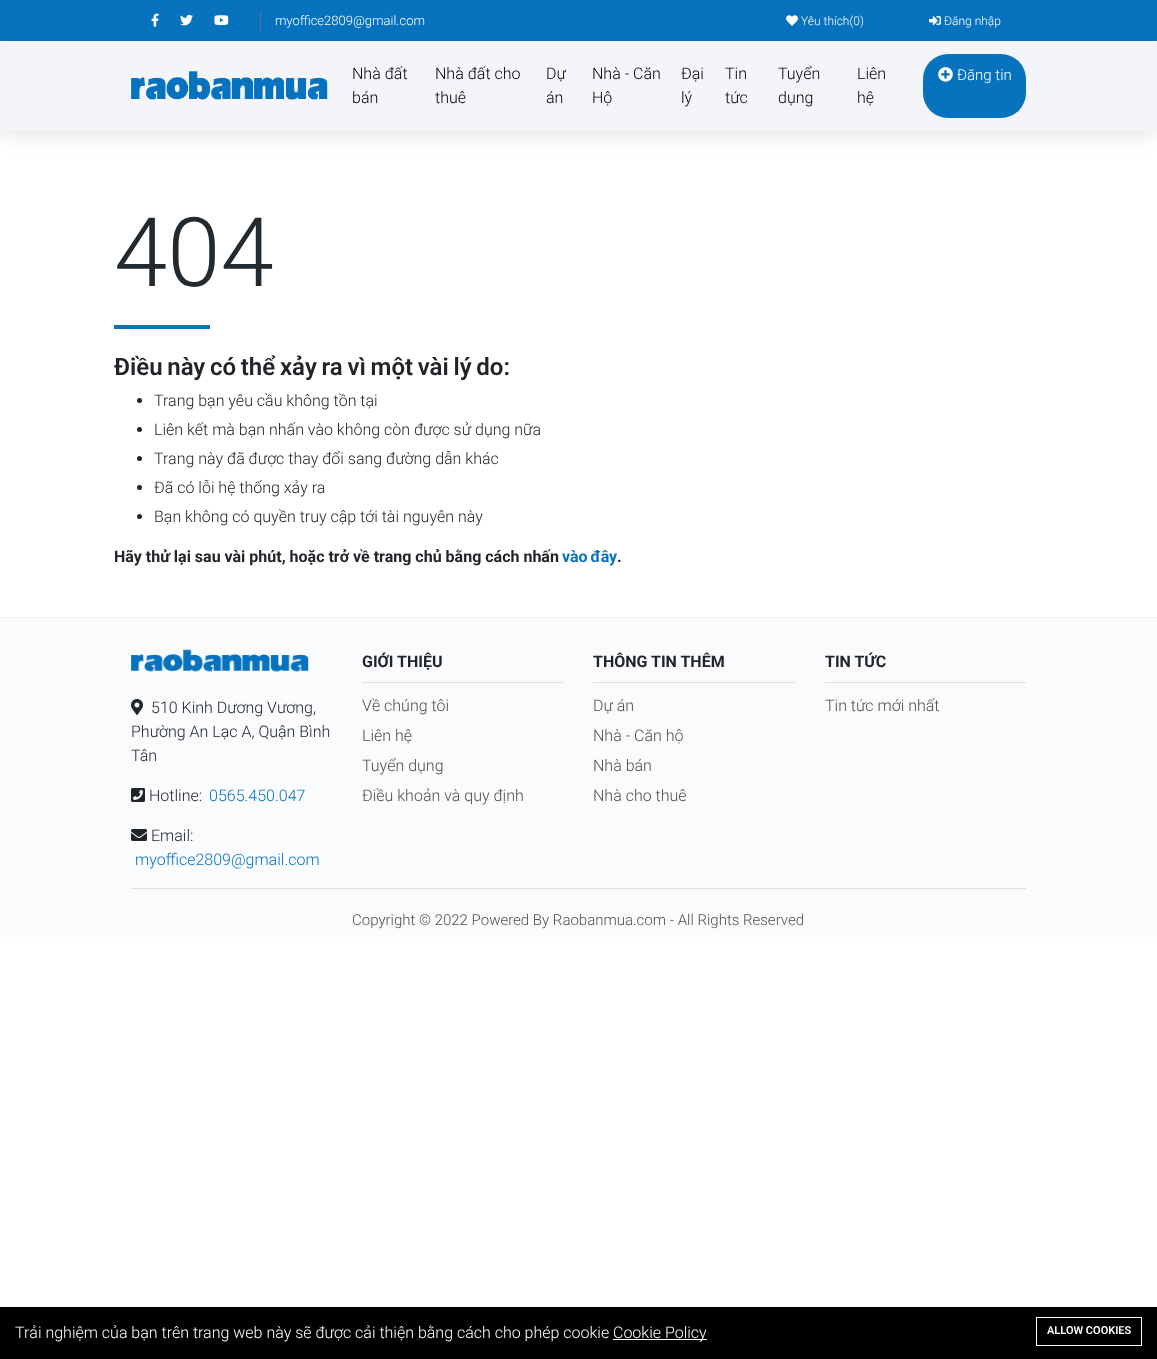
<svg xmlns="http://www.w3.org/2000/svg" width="1157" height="1359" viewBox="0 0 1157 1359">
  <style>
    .t1 { font: 300 13px Roboto; fill: #fff; }
    .t2 { font: 300 12px Roboto; fill: #fff; }
    .t3 { font: 300 16px Roboto; fill: #000; }
    .t4 { font: 300 15px Roboto; fill: #fff; }
    .t5 { font: 300 96px Roboto; fill: #22292f; }
    .t6 { font: 600 24px Roboto; fill: #212529; }
    .t7 { font: 300 16px Roboto; fill: #212529; }
    .t8 { font: bold 16px Roboto; fill: #212529; }
    .t9 { font: bold 16px Roboto; fill: #0773bf; }
    .t10 { font: 300 16px Roboto; fill: #0773bf; }
    .t11 { font: 300 16px Roboto; fill: #4f4f4f; }
    .t12 { font: 300 15px Roboto; fill: #4f4f4f; }
    .t13 { font: 300 16px Roboto; fill: #fff; }
    .t14 { font: 600 11px Roboto; fill: #fff; }
  </style>
  <rect width="100%" height="100%" fill="#fff"/>
  <rect x="0" y="0" width="1157" height="41" fill="#0773bf"/>
  <image x="151" y="13" width="8" height="14" href="images/1.png"/>
  <image x="180" y="14" width="13" height="12" href="images/2.png"/>
  <image x="214" y="15" width="15" height="10" href="images/3.png"/>
  <rect x="260" y="11" width="1" height="20" fill="#5f7190"/>
  <text x="275" y="25" class="t1">myoffice2809@gmail.com</text>
  <image x="786" y="15" width="12" height="11" href="images/4.png"/>
  <text x="801" y="25" class="t2">Yêu thích(0)</text>
  <image x="929" y="16" width="12" height="10" href="images/5.png"/>
  <text x="944" y="25" class="t2">Đăng nhập</text>
  <rect x="0" y="45" width="1157" height="90" fill="#0000001a" filter="blur(10px)"/>
  <rect x="0" y="41" width="1157" height="90" fill="#f4f5f9"/>
  <image x="131" y="71" width="197" height="29" href="images/6.png"/>
  <text x="352" y="79" class="t3">Nhà đất</text>
  <text x="352" y="103" class="t3">bán</text>
  <text x="435" y="79" class="t3">Nhà đất cho</text>
  <text x="435" y="103" class="t3">thuê</text>
  <text x="546" y="79" class="t3">Dự</text>
  <text x="546" y="103" class="t3">án</text>
  <text x="592" y="79" class="t3">Nhà - Căn</text>
  <text x="592" y="103" class="t3">Hộ</text>
  <text x="681" y="79" class="t3">Đại</text>
  <text x="681" y="103" class="t3">lý</text>
  <text x="725" y="79" class="t3">Tin</text>
  <text x="725" y="103" class="t3">tức</text>
  <text x="778" y="79" class="t3">Tuyển</text>
  <text x="778" y="103" class="t3">dụng</text>
  <text x="857" y="79" class="t3">Liên</text>
  <text x="857" y="103" class="t3">hệ</text>
  <rect x="923" y="54" width="103" height="64" rx="25" fill="#0773bf"/>
  <image x="938" y="67" width="15" height="15" href="images/7.png"/>
  <text x="957" y="80" class="t4">Đăng tin</text>
  <text x="114" y="286" class="t5">404</text>
  <rect x="114" y="325" width="96" height="4" fill="#0773bf"/>
  <text x="114" y="375" word-spacing="-1.25" class="t6">Điều này có thể xảy ra vì một vài lý do:</text>
  <circle cx="139.5" cy="400.5" r="2.5" fill="#212529"/>
  <text x="154" y="406" class="t7">Trang bạn yêu cầu không tồn tại</text>
  <circle cx="139.5" cy="429.5" r="2.5" fill="#212529"/>
  <text x="154" y="435" class="t7">Liên kết mà bạn nhấn vào không còn được sử dụng nữa</text>
  <circle cx="139.5" cy="458.5" r="2.5" fill="#212529"/>
  <text x="154" y="464" class="t7">Trang này đã được thay đổi sang đường dẫn khác</text>
  <circle cx="139.5" cy="487.5" r="2.5" fill="#212529"/>
  <text x="154" y="493" class="t7">Đã có lỗi hệ thống xảy ra</text>
  <circle cx="139.5" cy="516.5" r="2.5" fill="#212529"/>
  <text x="154" y="522" class="t7">Bạn không có quyền truy cập tới tài nguyên này</text>
  <text x="114" y="562" class="t8">Hãy thử lại sau vài phút, hoặc trở về trang chủ bằng cách nhấn</text>
  <text x="562" y="562" word-spacing="-1" class="t9">vào đây</text>
  <text x="617" y="562" class="t8">.</text>
  <rect x="0" y="618" width="1157" height="319" fill="#fafbfd"/>
  <rect x="0" y="617" width="1157" height="1" fill="#f0f0f0"/>
  <image x="131" y="649" width="178" height="23" href="images/8.png"/>
  <image x="131" y="699" width="12" height="16" href="images/9.png"/>
  <text x="151" y="713" class="t7">510 Kinh Dương Vương,</text>
  <text x="131" y="737" class="t7">Phường An Lạc A, Quận Bình</text>
  <text x="131" y="761" class="t7">Tân</text>
  <image x="131" y="788" width="14" height="14" href="images/10.png"/>
  <text x="149" y="801" class="t7">Hotline:</text>
  <text x="209" y="801" class="t10">0565.450.047</text>
  <image x="131" y="829" width="16" height="12" href="images/11.png"/>
  <text x="151" y="841" class="t7">Email:</text>
  <text x="135" y="865" class="t10">myoffice2809@gmail.com</text>
  <rect x="362" y="682" width="201" height="1" fill="#e0e0e0"/>
  <text x="362" y="667" class="t8">GIỚI THIỆU</text>
  <text x="362" y="711" class="t11">Về chúng tôi</text>
  <text x="362" y="741" class="t11">Liên hệ</text>
  <text x="362" y="771" class="t11">Tuyển dụng</text>
  <text x="362" y="801" class="t11">Điều khoản và quy định</text>
  <rect x="593" y="682" width="202" height="1" fill="#e0e0e0"/>
  <text x="593" y="667" class="t8">THÔNG TIN THÊM</text>
  <text x="593" y="711" class="t11">Dự án</text>
  <text x="593" y="741" class="t11">Nhà - Căn hộ</text>
  <text x="593" y="771" class="t11">Nhà bán</text>
  <text x="593" y="801" class="t11">Nhà cho thuê</text>
  <rect x="825" y="682" width="201" height="1" fill="#e0e0e0"/>
  <text x="825" y="667" class="t8">TIN TỨC</text>
  <text x="825" y="711" class="t11">Tin tức mới nhất</text>
  <rect x="131" y="888" width="895" height="1" fill="#e0e0e0"/>
  <text x="352" y="925" class="t12">Copyright © 2022 Powered By Raobanmua.com - All Rights Reserved</text>
  <rect x="0" y="1307" width="1157" height="52" fill="#000"/>
  <text x="15" y="1338" class="t13">Trải nghiệm của bạn trên trang web này sẽ được cải thiện bằng cách cho phép cookie</text>
  <rect x="613" y="1339" width="94" height="1" fill="#fff"/>
  <text x="613" y="1338" class="t13">Cookie Policy</text>
  <rect x="1036.5" y="1317.5" width="105" height="28" fill="none" stroke="#fff"/>
  <text x="1047" y="1334" class="t14">ALLOW COOKIES</text>
</svg>
